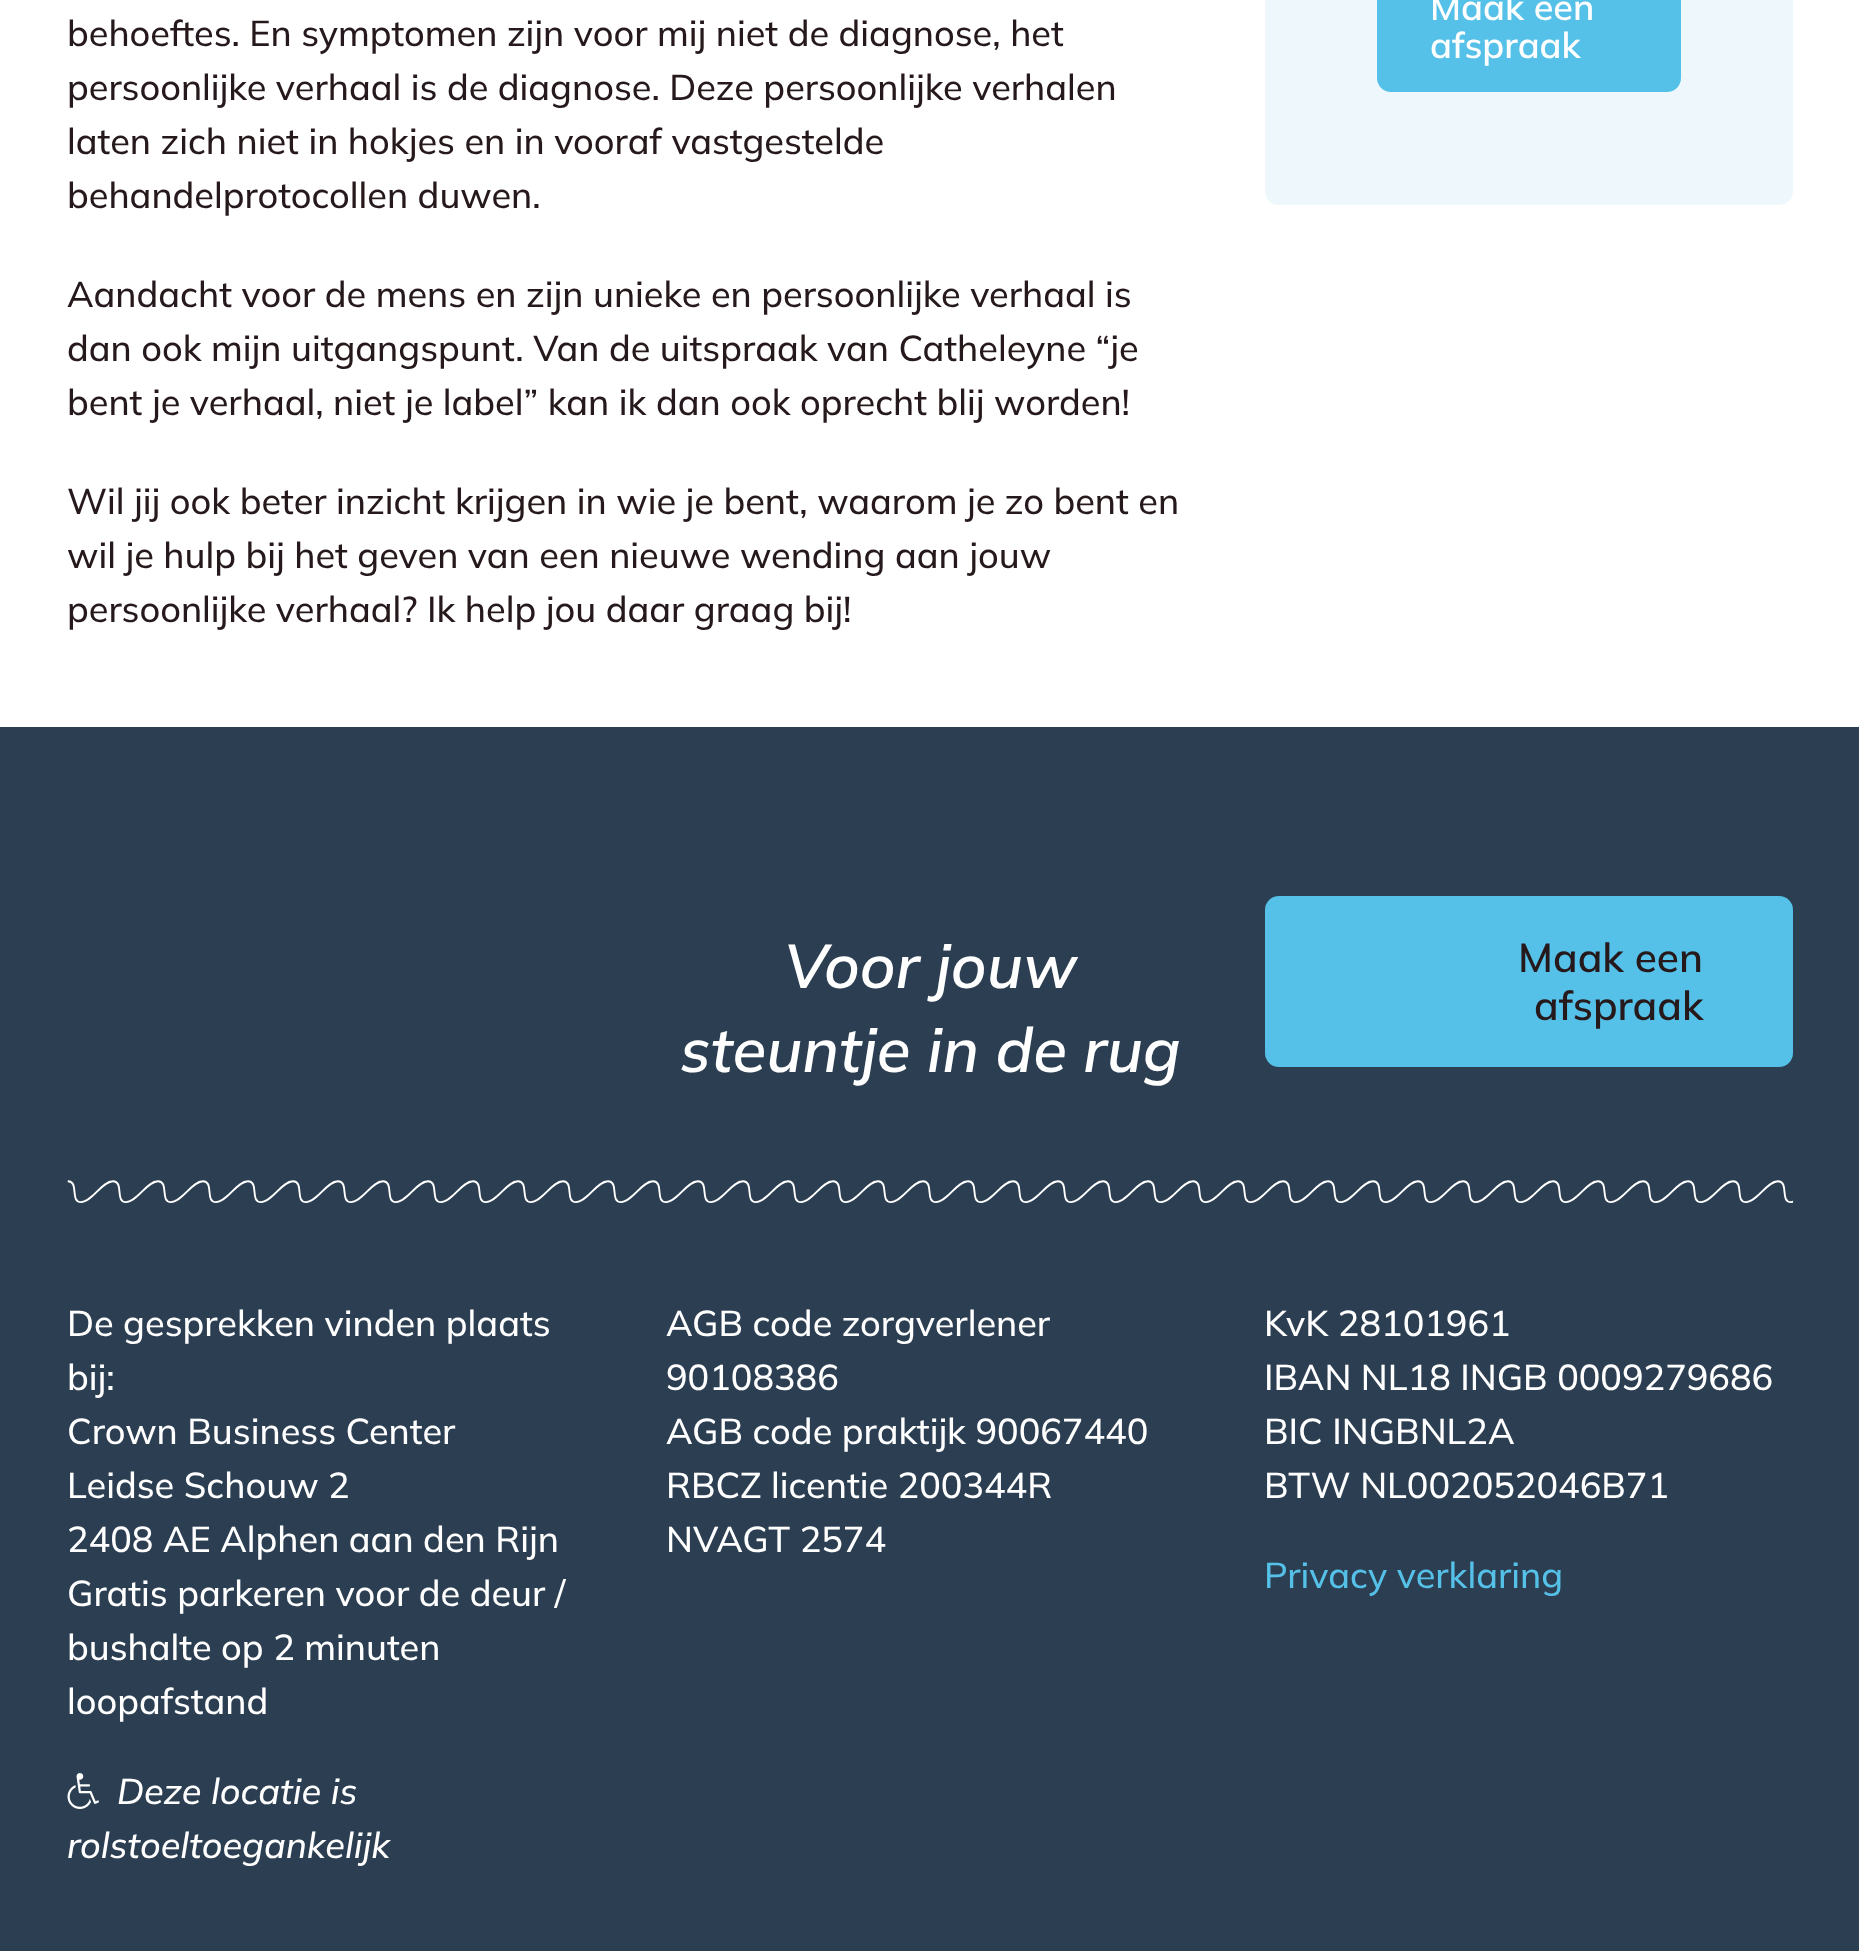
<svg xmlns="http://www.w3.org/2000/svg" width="1859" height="1951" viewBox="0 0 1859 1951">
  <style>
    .t1 { font: 500 36px Mulish; fill: #26191b; }
    .t2 { font: 600 36px Mulish; fill: #fff; }
    .t3 { font: italic 600 61.75px Mulish; fill: #fff; }
    .t4 { font: 600 40.5px Mulish; fill: #26191b; }
    .t5 { font: 500 36px Mulish; fill: #fff; }
    .t6 { font: italic 500 36px Mulish; fill: #fff; }
    .t7 { font: 500 36px Mulish; fill: #56c1e8; }
  </style>
  <rect width="100%" height="100%" fill="#fff"/>
  <text x="67" y="46" class="t1">behoeftes. En symptomen zijn voor mij niet de diagnose, het</text>
  <text x="67" y="100" class="t1">persoonlijke verhaal is de diagnose. Deze persoonlijke verhalen</text>
  <text x="67" y="154" class="t1">laten zich niet in hokjes en in vooraf vastgestelde</text>
  <text x="67" y="208" class="t1">behandelprotocollen duwen.</text>
  <text x="67" y="307" class="t1">Aandacht voor de mens en zijn unieke en persoonlijke verhaal is</text>
  <text x="67" y="361" class="t1">dan ook mijn uitgangspunt. Van de uitspraak van Catheleyne “je</text>
  <text x="67" y="415" class="t1">bent je verhaal, niet je label” kan ik dan ook oprecht blij worden!</text>
  <text x="67" y="514" class="t1">Wil jij ook beter inzicht krijgen in wie je bent, waarom je zo bent en</text>
  <text x="67" y="568" class="t1">wil je hulp bij het geven van een nieuwe wending aan jouw</text>
  <text x="67" y="622" class="t1">persoonlijke verhaal? Ik help jou daar graag bij!</text>
  <rect x="1265" y="-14" width="528" height="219" rx="14" fill="#eef8fc"/>
  <rect x="1377" y="-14" width="304" height="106" rx="14" fill="#56c1e8"/>
  <text x="1430" y="20" class="t2">Maak een</text>
  <text x="1430" y="58" class="t2">afspraak</text>
  <rect x="0" y="727" width="1859" height="1224" fill="#2c3e51"/>
  <text x="784" y="988" class="t3">Voor jouw</text>
  <text x="680" y="1072" class="t3">steuntje in de rug</text>
  <rect x="1265" y="896" width="528" height="171" rx="14" fill="#56c1e8"/>
  <text x="1518" y="972" class="t4">Maak een</text>
  <text x="1534" y="1020" class="t4">afspraak</text>
  <image x="67" y="1180" width="1727" height="23" href="images/1.png"/>
  <text x="67" y="1336" class="t5">De gesprekken vinden plaats</text>
  <text x="67" y="1390" class="t5">bij:</text>
  <text x="67" y="1444" class="t5">Crown Business Center</text>
  <text x="67" y="1498" class="t5">Leidse Schouw 2</text>
  <text x="67" y="1552" class="t5">2408 AE Alphen aan den Rijn</text>
  <text x="67" y="1606" class="t5">Gratis parkeren voor de deur /</text>
  <text x="67" y="1660" class="t5">bushalte op 2 minuten</text>
  <text x="67" y="1714" class="t5">loopafstand</text>
  <image x="67" y="1773" width="32" height="36" href="images/2.png"/>
  <text x="117" y="1804" class="t6">Deze locatie is</text>
  <text x="67" y="1858" class="t6">rolstoeltoegankelijk</text>
  <text x="666" y="1336" class="t5">AGB code zorgverlener</text>
  <text x="666" y="1390" class="t5">90108386</text>
  <text x="666" y="1444" class="t5">AGB code praktijk 90067440</text>
  <text x="666" y="1498" class="t5">RBCZ licentie 200344R</text>
  <text x="666" y="1552" class="t5">NVAGT 2574</text>
  <text x="1264" y="1336" class="t5">KvK 28101961</text>
  <text x="1264" y="1390" class="t5">IBAN NL18 INGB 0009279686</text>
  <text x="1264" y="1444" class="t5">BIC INGBNL2A</text>
  <text x="1264" y="1498" class="t5">BTW NL002052046B71</text>
  <text x="1264" y="1588" class="t7">Privacy verklaring</text>
</svg>
